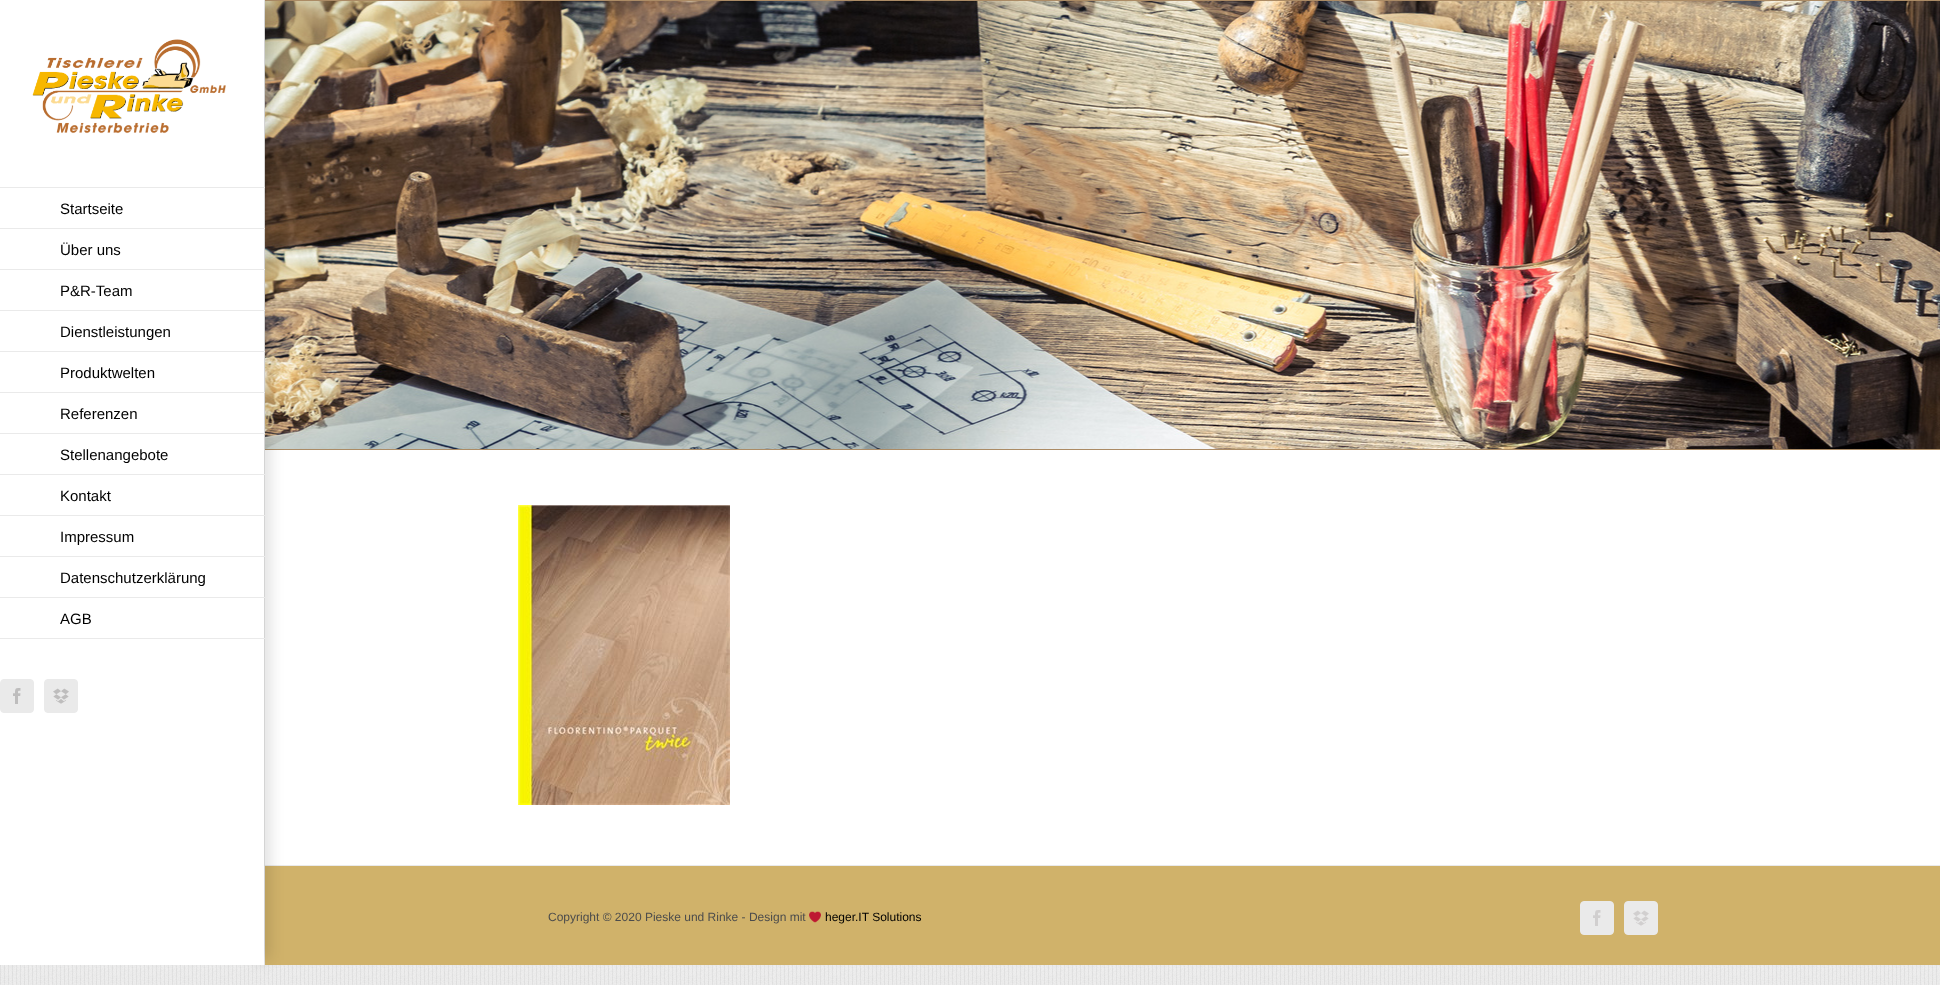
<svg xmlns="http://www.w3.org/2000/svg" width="1940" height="985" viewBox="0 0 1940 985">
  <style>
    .t1 { font: 15px Liberation Sans; fill: #000; }
    .t2 { font: 12px Liberation Sans; fill: #4c4c4c; }
    .t3 { font: 12px Liberation Sans; fill: #000; }
  </style>
  <defs>
    <clipPath id="clip1"><path d="M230 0H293V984H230ZM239 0H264V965H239Z" clip-rule="evenodd"/></clipPath>
  </defs>
  <rect width="100%" height="100%" fill="#fff"/>
  <image x="0" y="965" width="1940" height="20" href="images/1.png"/>
  <image x="32" y="39" width="194" height="95" href="images/2.png"/>
  <rect x="264" y="0" width="1" height="965" fill="#eaeaea"/>
  <image x="265" y="1" width="1675" height="448" href="images/5.png"/>
  <rect x="265" y="0" width="1675" height="1" fill="#ab8b65"/>
  <rect x="265" y="449" width="1675" height="1" fill="#ab8b65"/>
  <rect x="265" y="866" width="1675" height="99" fill="#d0b26a"/>
  <rect x="265" y="865" width="1675" height="1" fill="#eaeaea"/>
  <g clip-path="url(#clip1)">
    <rect x="254" y="5" width="15" height="955" fill="#00000024" filter="blur(7.5px)"/>
  </g>
  <rect x="0" y="187" width="265" height="1" fill="#eaeaea"/>
  <rect x="0" y="228" width="265" height="1" fill="#eaeaea"/>
  <text x="60" y="214" class="t1">Startseite</text>
  <rect x="0" y="269" width="265" height="1" fill="#eaeaea"/>
  <text x="60" y="255" class="t1">Über uns</text>
  <rect x="0" y="310" width="265" height="1" fill="#eaeaea"/>
  <text x="60" y="296" class="t1">P&amp;R-Team</text>
  <rect x="0" y="351" width="265" height="1" fill="#eaeaea"/>
  <text x="60" y="337" class="t1">Dienstleistungen</text>
  <rect x="0" y="392" width="265" height="1" fill="#eaeaea"/>
  <text x="60" y="378" class="t1">Produktwelten</text>
  <rect x="0" y="433" width="265" height="1" fill="#eaeaea"/>
  <text x="60" y="419" class="t1">Referenzen</text>
  <rect x="0" y="474" width="265" height="1" fill="#eaeaea"/>
  <text x="60" y="460" class="t1">Stellenangebote</text>
  <rect x="0" y="515" width="265" height="1" fill="#eaeaea"/>
  <text x="60" y="501" class="t1">Kontakt</text>
  <rect x="0" y="556" width="265" height="1" fill="#eaeaea"/>
  <text x="60" y="542" class="t1">Impressum</text>
  <rect x="0" y="597" width="265" height="1" fill="#eaeaea"/>
  <text x="60" y="583" class="t1">Datenschutzerklärung</text>
  <rect x="0" y="638" width="265" height="1" fill="#eaeaea"/>
  <text x="60" y="624" class="t1">AGB</text>
  <rect x="0.5" y="679.5" width="33" height="33" rx="3.5" fill="#eaeaea" stroke="#eaeaea"/>
  <image x="13" y="688" width="8" height="16" href="images/3.png"/>
  <rect x="44.5" y="679.5" width="33" height="33" rx="3.5" fill="#eaeaea" stroke="#eaeaea"/>
  <image x="53" y="688" width="16" height="16" href="images/4.png"/>
  <image x="518" y="505" width="212" height="300" href="images/6.png"/>
  <text x="548" y="921" class="t2">Copyright © 2020 Pieske und Rinke - Design mit</text>
  <image x="809" y="911" width="12" height="12" href="images/7.png"/>
  <text x="825" y="921" class="t3">heger.IT Solutions</text>
  <rect x="1580.5" y="901.5" width="33" height="33" rx="3.5" fill="#eaeaea" stroke="#eaeaea"/>
  <image x="1593" y="910" width="8" height="16" href="images/8.png"/>
  <rect x="1624.5" y="901.5" width="33" height="33" rx="3.5" fill="#eaeaea" stroke="#eaeaea"/>
  <image x="1633" y="910" width="16" height="16" href="images/9.png"/>
</svg>
